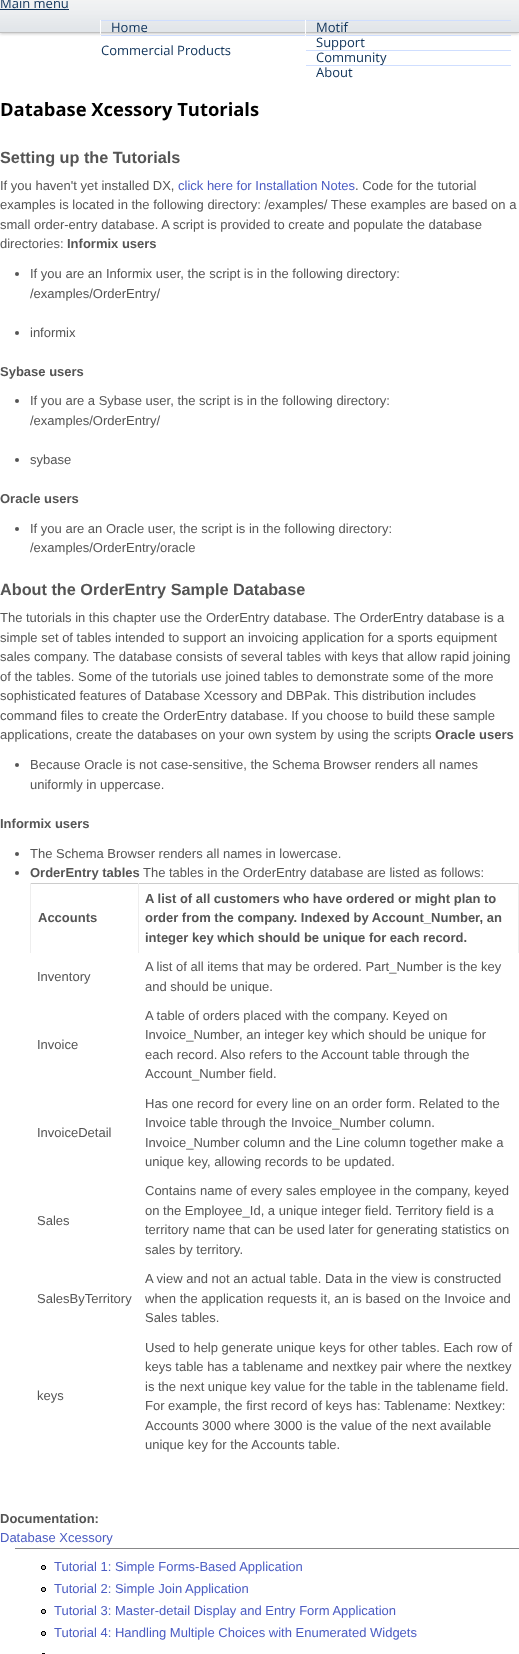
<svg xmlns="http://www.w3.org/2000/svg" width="519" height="1654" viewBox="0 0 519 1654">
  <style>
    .t1 { font: 13px Open Sans; fill: #0d3158; }
    .t2 { font: bold 18.4px Open Sans; fill: #000; }
    .t3 { font: bold 16.25px Liberation Sans; fill: #555; }
    .t4 { font: 13px Liberation Sans; fill: #555; }
    .t5 { font: 13px Liberation Sans; fill: #4b5cc3; }
    .t6 { font: bold 13px Liberation Sans; fill: #555; }
  </style>
  <rect width="100%" height="100%" fill="#fff"/>
  <rect x="0" y="-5" width="519" height="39" fill="#ccc" filter="blur(1.5px)"/>
  <image x="0" y="0" width="519" height="32" href="images/1.png"/>
  <rect x="0" y="32" width="519" height="1" fill="#c0c0c0"/>
  <text x="0" y="8" class="t1">Main menu</text>
  <rect x="0" y="9" width="69" height="1" fill="#0d3158"/>
  <rect x="100" y="20" width="411" height="1" fill="#cfdeff"/>
  <rect x="100" y="20" width="1" height="14" fill="#fff"/>
  <text x="111" y="32" class="t1">Home</text>
  <rect x="305" y="20" width="1" height="14" fill="#fff"/>
  <text x="316" y="32" class="t1">Motif</text>
  <rect x="100" y="35" width="411" height="1" fill="#cfdeff"/>
  <rect x="100" y="35" width="1" height="1" fill="#fff"/>
  <text x="101" y="55" class="t1">Commercial Products</text>
  <rect x="305" y="35" width="1" height="1" fill="#fff"/>
  <text x="316" y="47" class="t1">Support</text>
  <rect x="305" y="50" width="206" height="1" fill="#cfdeff"/>
  <rect x="305" y="50" width="1" height="1" fill="#fff"/>
  <text x="316" y="62" class="t1">Community</text>
  <rect x="305" y="65" width="206" height="1" fill="#cfdeff"/>
  <rect x="305" y="65" width="1" height="1" fill="#fff"/>
  <text x="316" y="77" class="t1">About</text>
  <text x="0" y="116" class="t2">Database Xcessory Tutorials</text>
  <text x="0" y="163" class="t3">Setting up the Tutorials</text>
  <text x="0" y="190" class="t4">If you haven't yet installed DX,</text>
  <text x="178" y="190" class="t5">click here for Installation Notes</text>
  <text x="355" y="190" class="t4">. Code for the tutorial</text>
  <text x="0" y="209" class="t4">examples is located in the following directory: /examples/ These examples are based on a</text>
  <text x="0" y="229" class="t4">small order-entry database. A script is provided to create and populate the database</text>
  <text x="0" y="248" class="t4">directories:</text>
  <text x="67" y="248" class="t6">Informix users</text>
  <circle cx="17" cy="274" r="2" fill="#555"/>
  <text x="30" y="278" class="t4">If you are an Informix user, the script is in the following directory:</text>
  <text x="30" y="298" class="t4">/examples/OrderEntry/</text>
  <circle cx="17" cy="333" r="2" fill="#555"/>
  <text x="30" y="337" class="t4">informix</text>
  <text x="0" y="376" class="t6">Sybase users</text>
  <circle cx="17" cy="401" r="2" fill="#555"/>
  <text x="30" y="405" class="t4">If you are a Sybase user, the script is in the following directory:</text>
  <text x="30" y="425" class="t4">/examples/OrderEntry/</text>
  <circle cx="17" cy="460" r="2" fill="#555"/>
  <text x="30" y="464" class="t4">sybase</text>
  <text x="0" y="503" class="t6">Oracle users</text>
  <circle cx="17" cy="529" r="2" fill="#555"/>
  <text x="30" y="533" class="t4">If you are an Oracle user, the script is in the following directory:</text>
  <text x="30" y="552" class="t4">/examples/OrderEntry/oracle</text>
  <text x="0" y="595" class="t3">About the OrderEntry Sample Database</text>
  <text x="0" y="622" class="t4">The tutorials in this chapter use the OrderEntry database. The OrderEntry database is a</text>
  <text x="0" y="642" class="t4">simple set of tables intended to support an invoicing application for a sports equipment</text>
  <text x="0" y="661" class="t4">sales company. The database consists of several tables with keys that allow rapid joining</text>
  <text x="0" y="681" class="t4">of the tables. Some of the tutorials use joined tables to demonstrate some of the more</text>
  <text x="0" y="700" class="t4">sophisticated features of Database Xcessory and DBPak. This distribution includes</text>
  <text x="0" y="720" class="t4">command files to create the OrderEntry database. If you choose to build these sample</text>
  <text x="0" y="739" class="t4">applications, create the databases on your own system by using the scripts</text>
  <text x="435" y="739" class="t6">Oracle users</text>
  <circle cx="17" cy="765" r="2" fill="#555"/>
  <text x="30" y="769" class="t4">Because Oracle is not case-sensitive, the Schema Browser renders all names</text>
  <text x="30" y="789" class="t4">uniformly in uppercase.</text>
  <text x="0" y="828" class="t6">Informix users</text>
  <circle cx="17" cy="854" r="2" fill="#555"/>
  <text x="30" y="858" class="t4">The Schema Browser renders all names in lowercase.</text>
  <circle cx="17" cy="873" r="2" fill="#555"/>
  <text x="30" y="877" class="t6">OrderEntry tables</text>
  <text x="143" y="877" class="t4">The tables in the OrderEntry database are listed as follows:</text>
  <rect x="30" y="883" width="489" height="1" fill="#ccc"/>
  <rect x="138" y="883" width="1" height="70" fill="#eee"/>
  <rect x="30" y="883" width="1" height="70" fill="#eee"/>
  <text x="38" y="922" class="t6">Accounts</text>
  <rect x="518" y="883" width="1" height="70" fill="#eee"/>
  <text x="145" y="903" class="t6">A list of all customers who have ordered or might plan to</text>
  <text x="145" y="922" class="t6">order from the company. Indexed by Account_Number, an</text>
  <text x="145" y="942" class="t6">integer key which should be unique for each record.</text>
  <text x="37" y="981" class="t4">Inventory</text>
  <text x="145" y="971" class="t4">A list of all items that may be ordered. Part_Number is the key</text>
  <text x="145" y="991" class="t4">and should be unique.</text>
  <text x="37" y="1049" class="t4">Invoice</text>
  <text x="145" y="1020" class="t4">A table of orders placed with the company. Keyed on</text>
  <text x="145" y="1039" class="t4">Invoice_Number, an integer key which should be unique for</text>
  <text x="145" y="1059" class="t4">each record. Also refers to the Account table through the</text>
  <text x="145" y="1078" class="t4">Account_Number field.</text>
  <text x="37" y="1137" class="t4">InvoiceDetail</text>
  <text x="145" y="1108" class="t4">Has one record for every line on an order form. Related to the</text>
  <text x="145" y="1127" class="t4">Invoice table through the Invoice_Number column.</text>
  <text x="145" y="1147" class="t4">Invoice_Number column and the Line column together make a</text>
  <text x="145" y="1166" class="t4">unique key, allowing records to be updated.</text>
  <text x="37" y="1225" class="t4">Sales</text>
  <text x="145" y="1195" class="t4">Contains name of every sales employee in the company, keyed</text>
  <text x="145" y="1215" class="t4">on the Employee_Id, a unique integer field. Territory field is a</text>
  <text x="145" y="1234" class="t4">territory name that can be used later for generating statistics on</text>
  <text x="145" y="1254" class="t4">sales by territory.</text>
  <text x="37" y="1303" class="t4">SalesByTerritory</text>
  <text x="145" y="1283" class="t4">A view and not an actual table. Data in the view is constructed</text>
  <text x="145" y="1303" class="t4">when the application requests it, an is based on the Invoice and</text>
  <text x="145" y="1322" class="t4">Sales tables.</text>
  <text x="37" y="1400" class="t4">keys</text>
  <text x="145" y="1352" class="t4">Used to help generate unique keys for other tables. Each row of</text>
  <text x="145" y="1371" class="t4">keys table has a tablename and nextkey pair where the nextkey</text>
  <text x="145" y="1391" class="t4">is the next unique key value for the table in the tablename field.</text>
  <text x="145" y="1410" class="t4">For example, the first record of keys has: Tablename: Nextkey:</text>
  <text x="145" y="1430" class="t4">Accounts 3000 where 3000 is the value of the next available</text>
  <text x="145" y="1449" class="t4">unique key for the Accounts table.</text>
  <text x="0" y="1523" class="t6">Documentation:</text>
  <text x="0" y="1542" class="t5">Database Xcessory</text>
  <rect x="15" y="1548" width="504" height="1" fill="#888"/>
  <image x="41" y="1565" width="5" height="5" href="images/2.png"/>
  <text x="54" y="1571" class="t5">Tutorial 1: Simple Forms-Based Application</text>
  <image x="41" y="1587" width="5" height="5" href="images/2.png"/>
  <text x="54" y="1593" class="t5">Tutorial 2: Simple Join Application</text>
  <image x="41" y="1609" width="5" height="5" href="images/2.png"/>
  <text x="54" y="1615" class="t5">Tutorial 3: Master-detail Display and Entry Form Application</text>
  <image x="41" y="1631" width="5" height="5" href="images/2.png"/>
  <text x="54" y="1637" class="t5">Tutorial 4: Handling Multiple Choices with Enumerated Widgets</text>
  <rect x="42" y="1653" width="3" height="1" fill="#000"/>
</svg>
